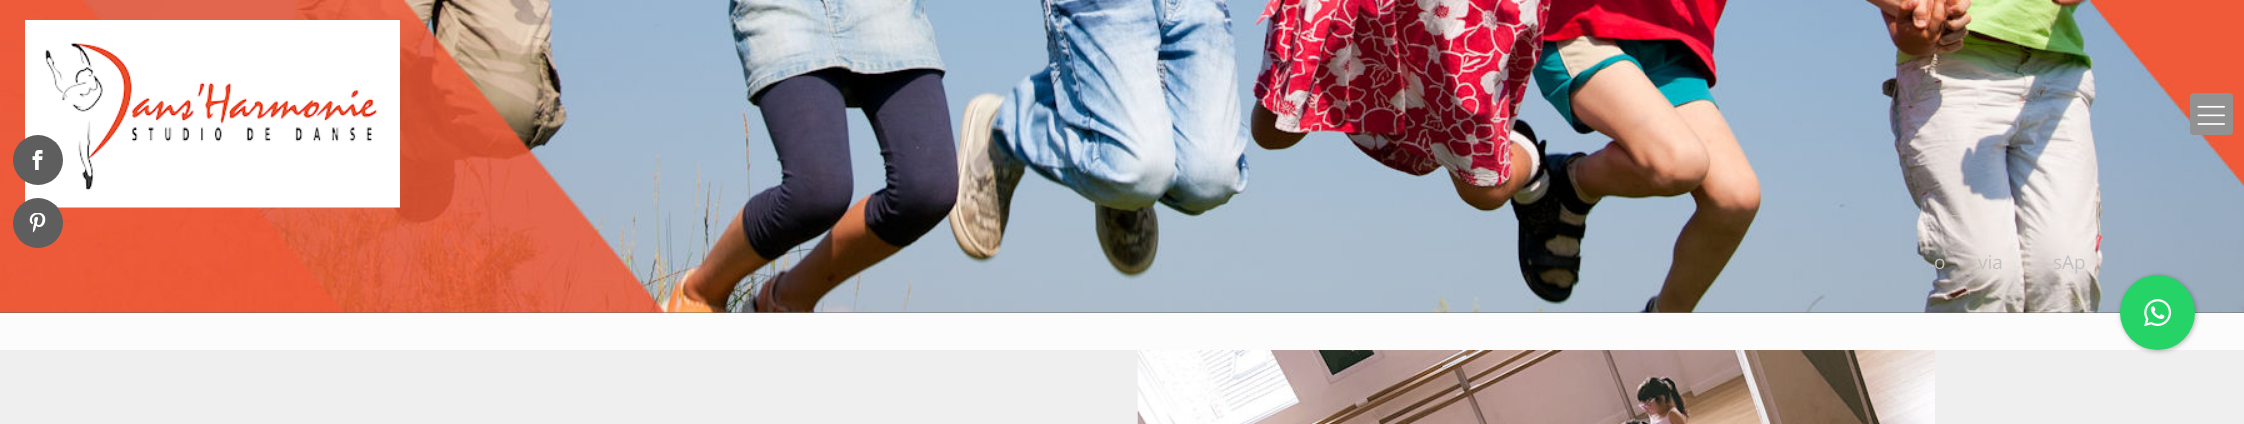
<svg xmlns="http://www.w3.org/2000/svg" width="2244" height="424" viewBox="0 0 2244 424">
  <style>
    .t1 { font: 19px Open Sans; fill: #c0c0c3; }
  </style>
  <rect width="100%" height="100%" fill="#fcfcfc"/>
  <rect x="0" y="312" width="2244" height="1" fill="#666"/>
  <image x="0" y="0" width="2244" height="313" href="images/1.png"/>
  <image x="25" y="20" width="375" height="188" href="images/2.png"/>
  <rect x="2190" y="93" width="43" height="42" rx="4" fill="#929292"/>
  <image x="2197" y="105" width="28" height="20" href="images/3.png"/>
  <rect x="0" y="350" width="2244" height="74" fill="#efefef"/>
  <image x="1137" y="350" width="798" height="74" href="images/4.png"/>
  <circle cx="38" cy="160" r="25" fill="#5e5e5e"/>
  <image x="32" y="150" width="11" height="20" href="images/5.png"/>
  <circle cx="38" cy="223" r="25" fill="#5e5e5e"/>
  <image x="29" y="213" width="17" height="20" href="images/6.png"/>
  <text x="1934" y="269" class="t1">o</text>
  <text x="1978" y="269" class="t1">via</text>
  <text x="2053" y="269" class="t1">sAp</text>
  <rect x="2121" y="276" width="75" height="75" rx="37.5" fill="#0000004d" filter="blur(2.5px)"/>
  <circle cx="2157.5" cy="312.5" r="37.5" fill="#25d366"/>
  <image x="2144" y="299" width="28" height="28" href="images/7.png"/>
</svg>
